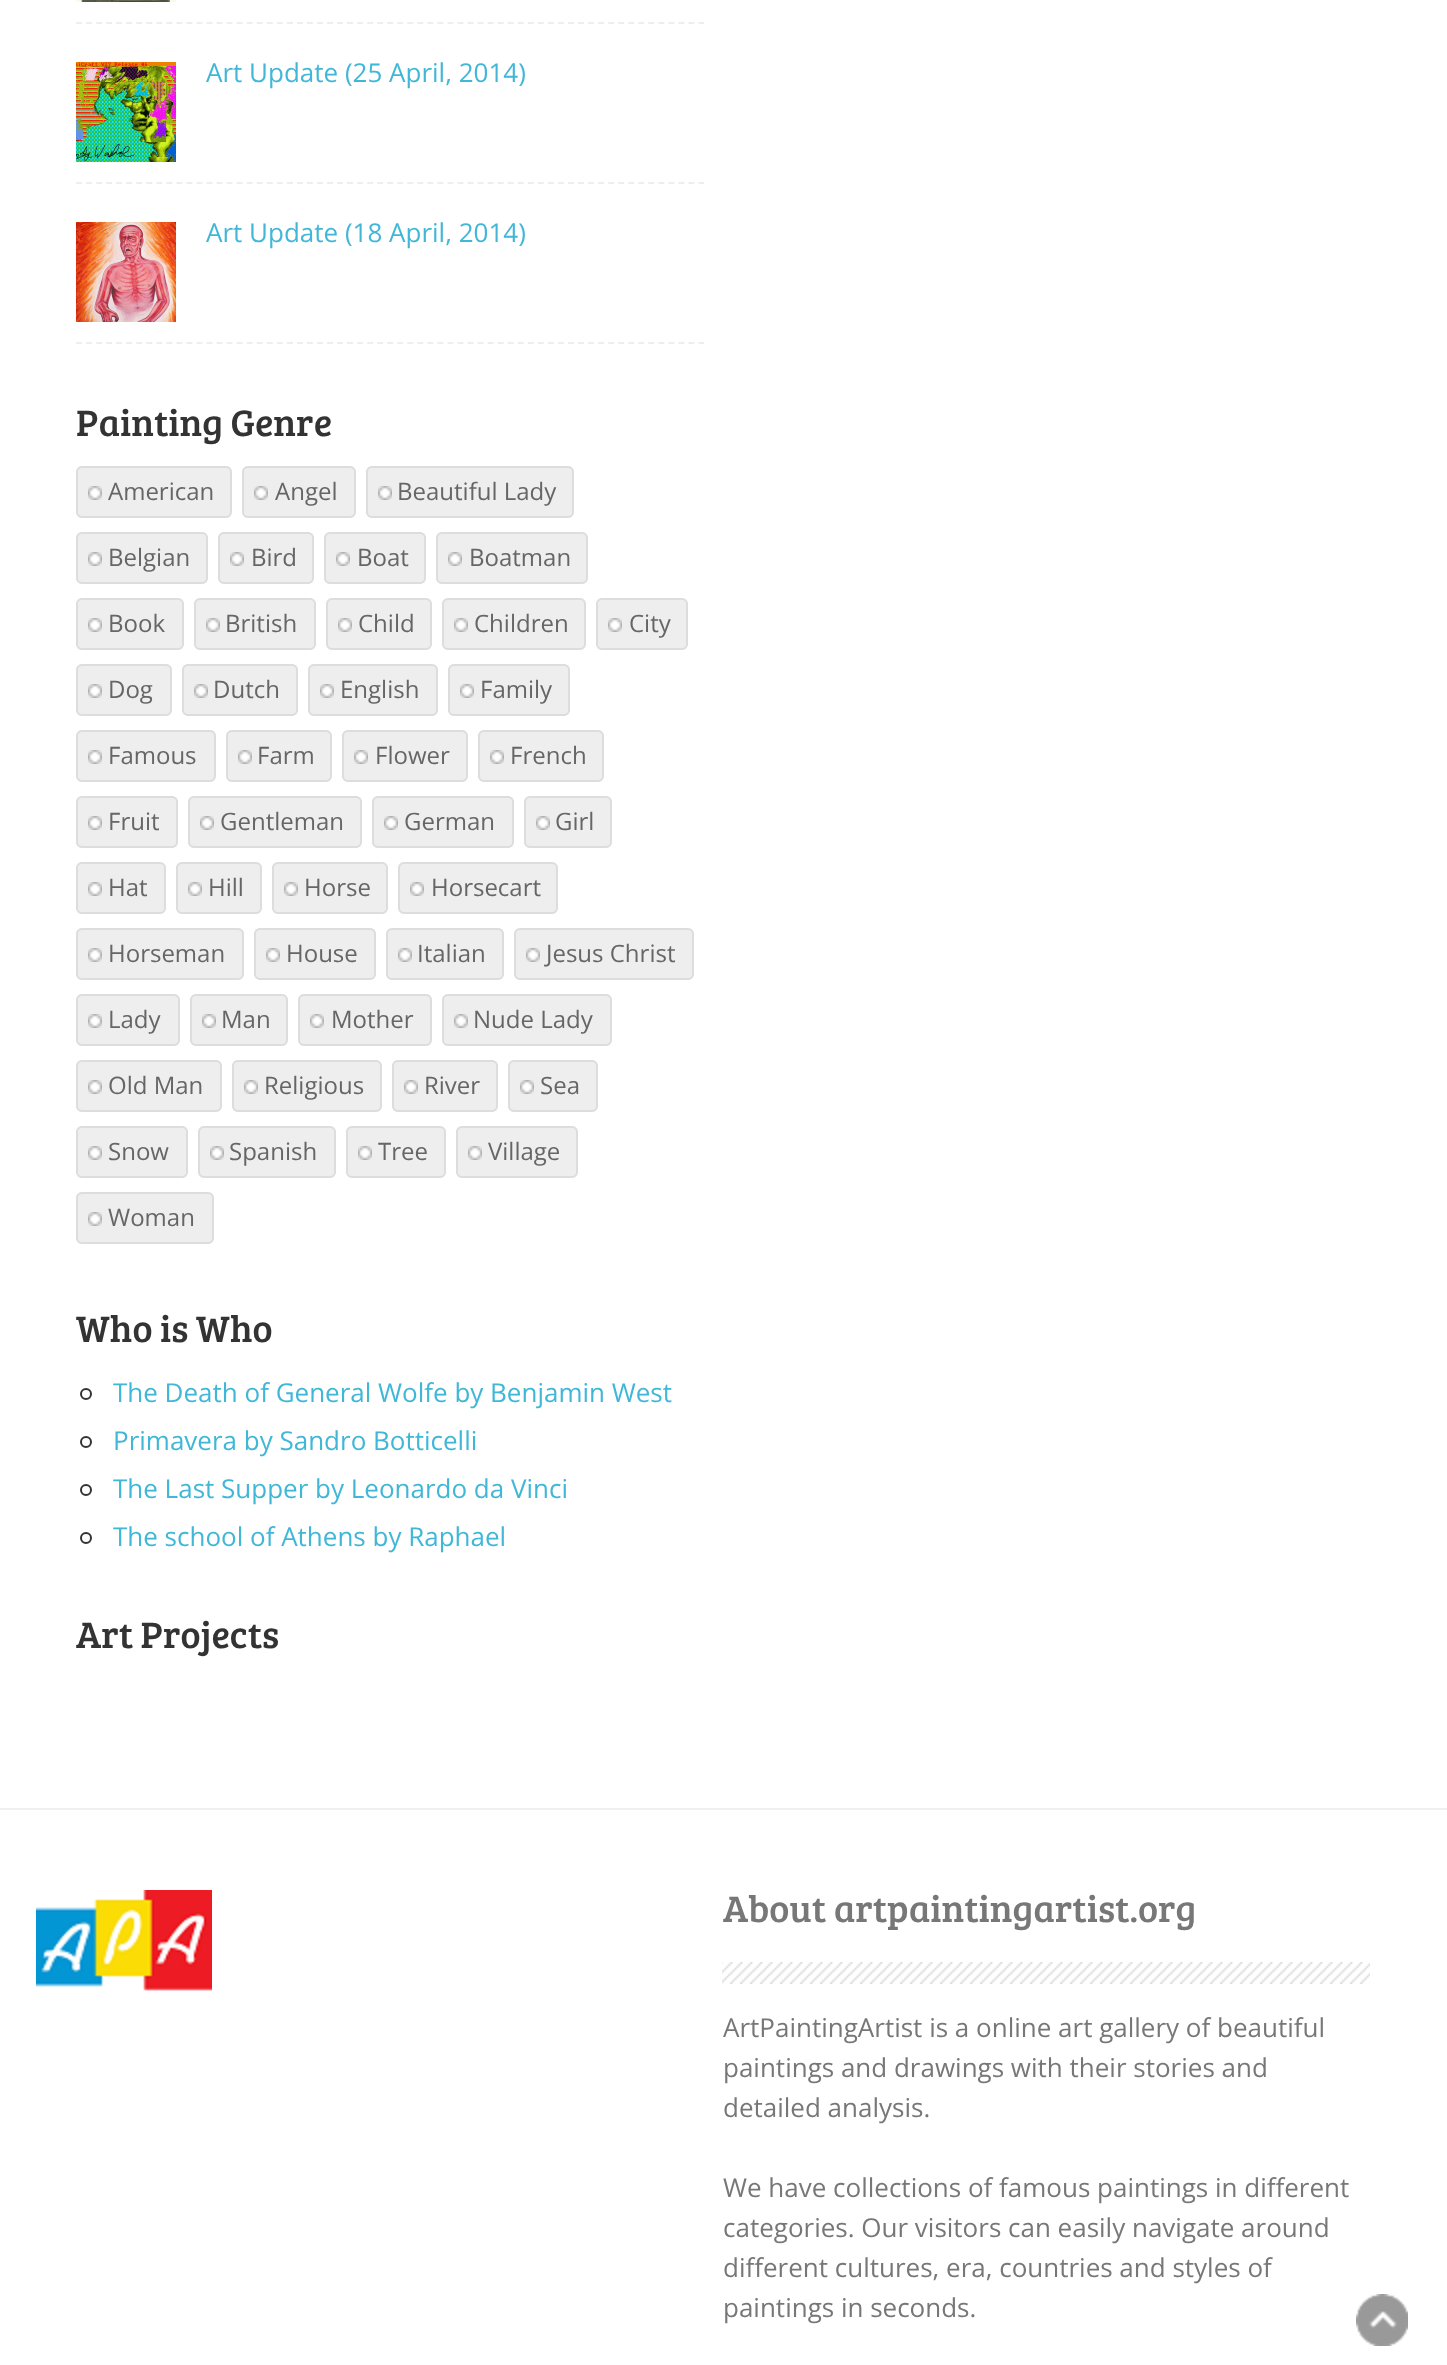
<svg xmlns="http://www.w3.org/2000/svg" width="1447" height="2365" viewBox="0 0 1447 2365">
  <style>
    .t1 { font: 26px Open Sans; fill: #41b7d8; }
    .t2 { font: 38px Bree Serif; fill: #333; }
    .t3 { font: 24px Open Sans; fill: #666; }
    .t4 { font: 38px Bree Serif; fill: #777; }
    .t5 { font: 26px Open Sans; fill: #777; }
  </style>
  <rect width="100%" height="100%" fill="#fff"/>
  <path d="M76 23H704" fill="none" stroke="#eee" stroke-width="2" stroke-dasharray="6 4.04"/>
  <image x="76" y="0" width="100" height="2" href="images/1.png"/>
  <path d="M76 183H704" fill="none" stroke="#eee" stroke-width="2" stroke-dasharray="6 4.04"/>
  <image x="76" y="62" width="100" height="100" href="images/2.png"/>
  <text x="206" y="82" class="t1">Art Update (25 April, 2014)</text>
  <path d="M76 343H704" fill="none" stroke="#eee" stroke-width="2" stroke-dasharray="6 4.04"/>
  <image x="76" y="222" width="100" height="100" href="images/3.png"/>
  <text x="206" y="242" class="t1">Art Update (18 April, 2014)</text>
  <text x="76" y="436" class="t2">Painting Genre</text>
  <rect x="76" y="466" width="156" height="52" rx="6" fill="#eee"/>
  <image x="88" y="486" width="14" height="14" href="images/4.png"/>
  <rect x="77" y="467" width="154" height="50" rx="5" fill="none" stroke="#ddd" stroke-width="2"/>
  <text x="108" y="500" class="t3">American</text>
  <rect x="242" y="466" width="114" height="52" rx="6" fill="#eee"/>
  <image x="254" y="486" width="14" height="14" href="images/4.png"/>
  <rect x="243" y="467" width="112" height="50" rx="5" fill="none" stroke="#ddd" stroke-width="2"/>
  <text x="275" y="500" class="t3">Angel</text>
  <rect x="366" y="466" width="208" height="52" rx="6" fill="#eee"/>
  <image x="378" y="486" width="14" height="14" href="images/4.png"/>
  <rect x="367" y="467" width="206" height="50" rx="5" fill="none" stroke="#ddd" stroke-width="2"/>
  <text x="397" y="500" class="t3">Beautiful Lady</text>
  <rect x="76" y="532" width="132" height="52" rx="6" fill="#eee"/>
  <image x="88" y="552" width="14" height="14" href="images/4.png"/>
  <rect x="77" y="533" width="130" height="50" rx="5" fill="none" stroke="#ddd" stroke-width="2"/>
  <text x="108" y="566" class="t3">Belgian</text>
  <rect x="218" y="532" width="96" height="52" rx="6" fill="#eee"/>
  <image x="230" y="552" width="14" height="14" href="images/4.png"/>
  <rect x="219" y="533" width="94" height="50" rx="5" fill="none" stroke="#ddd" stroke-width="2"/>
  <text x="251" y="566" class="t3">Bird</text>
  <rect x="324" y="532" width="102" height="52" rx="6" fill="#eee"/>
  <image x="336" y="552" width="14" height="14" href="images/4.png"/>
  <rect x="325" y="533" width="100" height="50" rx="5" fill="none" stroke="#ddd" stroke-width="2"/>
  <text x="357" y="566" class="t3">Boat</text>
  <rect x="436" y="532" width="152" height="52" rx="6" fill="#eee"/>
  <image x="448" y="552" width="14" height="14" href="images/4.png"/>
  <rect x="437" y="533" width="150" height="50" rx="5" fill="none" stroke="#ddd" stroke-width="2"/>
  <text x="469" y="566" class="t3">Boatman</text>
  <rect x="76" y="598" width="108" height="52" rx="6" fill="#eee"/>
  <image x="88" y="618" width="14" height="14" href="images/4.png"/>
  <rect x="77" y="599" width="106" height="50" rx="5" fill="none" stroke="#ddd" stroke-width="2"/>
  <text x="108" y="632" class="t3">Book</text>
  <rect x="194" y="598" width="122" height="52" rx="6" fill="#eee"/>
  <image x="206" y="618" width="14" height="14" href="images/4.png"/>
  <rect x="195" y="599" width="120" height="50" rx="5" fill="none" stroke="#ddd" stroke-width="2"/>
  <text x="225" y="632" class="t3">British</text>
  <rect x="326" y="598" width="106" height="52" rx="6" fill="#eee"/>
  <image x="338" y="618" width="14" height="14" href="images/4.png"/>
  <rect x="327" y="599" width="104" height="50" rx="5" fill="none" stroke="#ddd" stroke-width="2"/>
  <text x="358" y="632" class="t3">Child</text>
  <rect x="442" y="598" width="144" height="52" rx="6" fill="#eee"/>
  <image x="454" y="618" width="14" height="14" href="images/4.png"/>
  <rect x="443" y="599" width="142" height="50" rx="5" fill="none" stroke="#ddd" stroke-width="2"/>
  <text x="474" y="632" class="t3">Children</text>
  <rect x="596" y="598" width="92" height="52" rx="6" fill="#eee"/>
  <image x="608" y="618" width="14" height="14" href="images/4.png"/>
  <rect x="597" y="599" width="90" height="50" rx="5" fill="none" stroke="#ddd" stroke-width="2"/>
  <text x="629" y="632" class="t3">City</text>
  <rect x="76" y="664" width="96" height="52" rx="6" fill="#eee"/>
  <image x="88" y="684" width="14" height="14" href="images/4.png"/>
  <rect x="77" y="665" width="94" height="50" rx="5" fill="none" stroke="#ddd" stroke-width="2"/>
  <text x="108" y="698" class="t3">Dog</text>
  <rect x="182" y="664" width="116" height="52" rx="6" fill="#eee"/>
  <image x="194" y="684" width="14" height="14" href="images/4.png"/>
  <rect x="183" y="665" width="114" height="50" rx="5" fill="none" stroke="#ddd" stroke-width="2"/>
  <text x="213" y="698" class="t3">Dutch</text>
  <rect x="308" y="664" width="130" height="52" rx="6" fill="#eee"/>
  <image x="320" y="684" width="14" height="14" href="images/4.png"/>
  <rect x="309" y="665" width="128" height="50" rx="5" fill="none" stroke="#ddd" stroke-width="2"/>
  <text x="340" y="698" class="t3">English</text>
  <rect x="448" y="664" width="122" height="52" rx="6" fill="#eee"/>
  <image x="460" y="684" width="14" height="14" href="images/4.png"/>
  <rect x="449" y="665" width="120" height="50" rx="5" fill="none" stroke="#ddd" stroke-width="2"/>
  <text x="480" y="698" class="t3">Family</text>
  <rect x="76" y="730" width="140" height="52" rx="6" fill="#eee"/>
  <image x="88" y="750" width="14" height="14" href="images/4.png"/>
  <rect x="77" y="731" width="138" height="50" rx="5" fill="none" stroke="#ddd" stroke-width="2"/>
  <text x="108" y="764" class="t3">Famous</text>
  <rect x="226" y="730" width="106" height="52" rx="6" fill="#eee"/>
  <image x="238" y="750" width="14" height="14" href="images/4.png"/>
  <rect x="227" y="731" width="104" height="50" rx="5" fill="none" stroke="#ddd" stroke-width="2"/>
  <text x="257" y="764" class="t3">Farm</text>
  <rect x="342" y="730" width="126" height="52" rx="6" fill="#eee"/>
  <image x="354" y="750" width="14" height="14" href="images/4.png"/>
  <rect x="343" y="731" width="124" height="50" rx="5" fill="none" stroke="#ddd" stroke-width="2"/>
  <text x="375" y="764" class="t3">Flower</text>
  <rect x="478" y="730" width="126" height="52" rx="6" fill="#eee"/>
  <image x="490" y="750" width="14" height="14" href="images/4.png"/>
  <rect x="479" y="731" width="124" height="50" rx="5" fill="none" stroke="#ddd" stroke-width="2"/>
  <text x="510" y="764" class="t3">French</text>
  <rect x="76" y="796" width="102" height="52" rx="6" fill="#eee"/>
  <image x="88" y="816" width="14" height="14" href="images/4.png"/>
  <rect x="77" y="797" width="100" height="50" rx="5" fill="none" stroke="#ddd" stroke-width="2"/>
  <text x="108" y="830" class="t3">Fruit</text>
  <rect x="188" y="796" width="174" height="52" rx="6" fill="#eee"/>
  <image x="200" y="816" width="14" height="14" href="images/4.png"/>
  <rect x="189" y="797" width="172" height="50" rx="5" fill="none" stroke="#ddd" stroke-width="2"/>
  <text x="220" y="830" class="t3">Gentleman</text>
  <rect x="372" y="796" width="142" height="52" rx="6" fill="#eee"/>
  <image x="384" y="816" width="14" height="14" href="images/4.png"/>
  <rect x="373" y="797" width="140" height="50" rx="5" fill="none" stroke="#ddd" stroke-width="2"/>
  <text x="404" y="830" class="t3">German</text>
  <rect x="524" y="796" width="88" height="52" rx="6" fill="#eee"/>
  <image x="536" y="816" width="14" height="14" href="images/4.png"/>
  <rect x="525" y="797" width="86" height="50" rx="5" fill="none" stroke="#ddd" stroke-width="2"/>
  <text x="555" y="830" class="t3">Girl</text>
  <rect x="76" y="862" width="90" height="52" rx="6" fill="#eee"/>
  <image x="88" y="882" width="14" height="14" href="images/4.png"/>
  <rect x="77" y="863" width="88" height="50" rx="5" fill="none" stroke="#ddd" stroke-width="2"/>
  <text x="108" y="896" class="t3">Hat</text>
  <rect x="176" y="862" width="86" height="52" rx="6" fill="#eee"/>
  <image x="188" y="882" width="14" height="14" href="images/4.png"/>
  <rect x="177" y="863" width="84" height="50" rx="5" fill="none" stroke="#ddd" stroke-width="2"/>
  <text x="208" y="896" class="t3">Hill</text>
  <rect x="272" y="862" width="116" height="52" rx="6" fill="#eee"/>
  <image x="284" y="882" width="14" height="14" href="images/4.png"/>
  <rect x="273" y="863" width="114" height="50" rx="5" fill="none" stroke="#ddd" stroke-width="2"/>
  <text x="304" y="896" class="t3">Horse</text>
  <rect x="398" y="862" width="160" height="52" rx="6" fill="#eee"/>
  <image x="410" y="882" width="14" height="14" href="images/4.png"/>
  <rect x="399" y="863" width="158" height="50" rx="5" fill="none" stroke="#ddd" stroke-width="2"/>
  <text x="431" y="896" class="t3">Horsecart</text>
  <rect x="76" y="928" width="168" height="52" rx="6" fill="#eee"/>
  <image x="88" y="948" width="14" height="14" href="images/4.png"/>
  <rect x="77" y="929" width="166" height="50" rx="5" fill="none" stroke="#ddd" stroke-width="2"/>
  <text x="108" y="962" class="t3">Horseman</text>
  <rect x="254" y="928" width="122" height="52" rx="6" fill="#eee"/>
  <image x="266" y="948" width="14" height="14" href="images/4.png"/>
  <rect x="255" y="929" width="120" height="50" rx="5" fill="none" stroke="#ddd" stroke-width="2"/>
  <text x="286" y="962" class="t3">House</text>
  <rect x="386" y="928" width="118" height="52" rx="6" fill="#eee"/>
  <image x="398" y="948" width="14" height="14" href="images/4.png"/>
  <rect x="387" y="929" width="116" height="50" rx="5" fill="none" stroke="#ddd" stroke-width="2"/>
  <text x="417" y="962" class="t3">Italian</text>
  <rect x="514" y="928" width="180" height="52" rx="6" fill="#eee"/>
  <image x="526" y="948" width="14" height="14" href="images/4.png"/>
  <rect x="515" y="929" width="178" height="50" rx="5" fill="none" stroke="#ddd" stroke-width="2"/>
  <text x="546" y="962" class="t3">Jesus Christ</text>
  <rect x="76" y="994" width="104" height="52" rx="6" fill="#eee"/>
  <image x="88" y="1014" width="14" height="14" href="images/4.png"/>
  <rect x="77" y="995" width="102" height="50" rx="5" fill="none" stroke="#ddd" stroke-width="2"/>
  <text x="108" y="1028" class="t3">Lady</text>
  <rect x="190" y="994" width="98" height="52" rx="6" fill="#eee"/>
  <image x="202" y="1014" width="14" height="14" href="images/4.png"/>
  <rect x="191" y="995" width="96" height="50" rx="5" fill="none" stroke="#ddd" stroke-width="2"/>
  <text x="221" y="1028" class="t3">Man</text>
  <rect x="298" y="994" width="134" height="52" rx="6" fill="#eee"/>
  <image x="310" y="1014" width="14" height="14" href="images/4.png"/>
  <rect x="299" y="995" width="132" height="50" rx="5" fill="none" stroke="#ddd" stroke-width="2"/>
  <text x="331" y="1028" class="t3">Mother</text>
  <rect x="442" y="994" width="170" height="52" rx="6" fill="#eee"/>
  <image x="454" y="1014" width="14" height="14" href="images/4.png"/>
  <rect x="443" y="995" width="168" height="50" rx="5" fill="none" stroke="#ddd" stroke-width="2"/>
  <text x="473" y="1028" class="t3">Nude Lady</text>
  <rect x="76" y="1060" width="146" height="52" rx="6" fill="#eee"/>
  <image x="88" y="1080" width="14" height="14" href="images/4.png"/>
  <rect x="77" y="1061" width="144" height="50" rx="5" fill="none" stroke="#ddd" stroke-width="2"/>
  <text x="108" y="1094" class="t3">Old Man</text>
  <rect x="232" y="1060" width="150" height="52" rx="6" fill="#eee"/>
  <image x="244" y="1080" width="14" height="14" href="images/4.png"/>
  <rect x="233" y="1061" width="148" height="50" rx="5" fill="none" stroke="#ddd" stroke-width="2"/>
  <text x="264" y="1094" class="t3">Religious</text>
  <rect x="392" y="1060" width="106" height="52" rx="6" fill="#eee"/>
  <image x="404" y="1080" width="14" height="14" href="images/4.png"/>
  <rect x="393" y="1061" width="104" height="50" rx="5" fill="none" stroke="#ddd" stroke-width="2"/>
  <text x="424" y="1094" class="t3">River</text>
  <rect x="508" y="1060" width="90" height="52" rx="6" fill="#eee"/>
  <image x="520" y="1080" width="14" height="14" href="images/4.png"/>
  <rect x="509" y="1061" width="88" height="50" rx="5" fill="none" stroke="#ddd" stroke-width="2"/>
  <text x="540" y="1094" class="t3">Sea</text>
  <rect x="76" y="1126" width="112" height="52" rx="6" fill="#eee"/>
  <image x="88" y="1146" width="14" height="14" href="images/4.png"/>
  <rect x="77" y="1127" width="110" height="50" rx="5" fill="none" stroke="#ddd" stroke-width="2"/>
  <text x="108" y="1160" class="t3">Snow</text>
  <rect x="198" y="1126" width="138" height="52" rx="6" fill="#eee"/>
  <image x="210" y="1146" width="14" height="14" href="images/4.png"/>
  <rect x="199" y="1127" width="136" height="50" rx="5" fill="none" stroke="#ddd" stroke-width="2"/>
  <text x="229" y="1160" class="t3">Spanish</text>
  <rect x="346" y="1126" width="100" height="52" rx="6" fill="#eee"/>
  <image x="358" y="1146" width="14" height="14" href="images/4.png"/>
  <rect x="347" y="1127" width="98" height="50" rx="5" fill="none" stroke="#ddd" stroke-width="2"/>
  <text x="378" y="1160" class="t3">Tree</text>
  <rect x="456" y="1126" width="122" height="52" rx="6" fill="#eee"/>
  <image x="468" y="1146" width="14" height="14" href="images/4.png"/>
  <rect x="457" y="1127" width="120" height="50" rx="5" fill="none" stroke="#ddd" stroke-width="2"/>
  <text x="488" y="1160" class="t3">Village</text>
  <rect x="76" y="1192" width="138" height="52" rx="6" fill="#eee"/>
  <image x="88" y="1212" width="14" height="14" href="images/4.png"/>
  <rect x="77" y="1193" width="136" height="50" rx="5" fill="none" stroke="#ddd" stroke-width="2"/>
  <text x="108" y="1226" class="t3">Woman</text>
  <text x="76" y="1342" class="t2">Who is Who</text>
  <circle cx="86" cy="1394" r="5" fill="none" stroke="#333" stroke-width="2"/>
  <text x="113" y="1402" class="t1">The Death of General Wolfe by Benjamin West</text>
  <circle cx="86" cy="1442" r="5" fill="none" stroke="#333" stroke-width="2"/>
  <text x="113" y="1450" class="t1">Primavera by Sandro Botticelli</text>
  <circle cx="86" cy="1490" r="5" fill="none" stroke="#333" stroke-width="2"/>
  <text x="113" y="1498" class="t1">The Last Supper by Leonardo da Vinci</text>
  <circle cx="86" cy="1538" r="5" fill="none" stroke="#333" stroke-width="2"/>
  <text x="113" y="1546" class="t1">The school of Athens by Raphael</text>
  <text x="76" y="1648" class="t2">Art Projects</text>
  <rect x="0" y="1808" width="1447" height="2" fill="#efefef"/>
  <image x="36" y="1890" width="176" height="101" href="images/5.png"/>
  <image x="722" y="1962" width="648" height="22" href="images/6.png"/>
  <text x="723" y="1922" class="t4">About artpaintingartist.org</text>
  <text x="723" y="2037" class="t5">ArtPaintingArtist is a online art gallery of beautiful</text>
  <text x="723" y="2077" class="t5">paintings and drawings with their stories and</text>
  <text x="723" y="2117" class="t5">detailed analysis.</text>
  <text x="723" y="2197" class="t5">We have collections of famous paintings in different</text>
  <text x="723" y="2237" class="t5">categories. Our visitors can easily navigate around</text>
  <text x="723" y="2277" class="t5">different cultures, era, countries and styles of</text>
  <text x="723" y="2317" class="t5">paintings in seconds.</text>
  <image x="1356" y="2294" width="52" height="52" href="images/7.png"/>
</svg>
